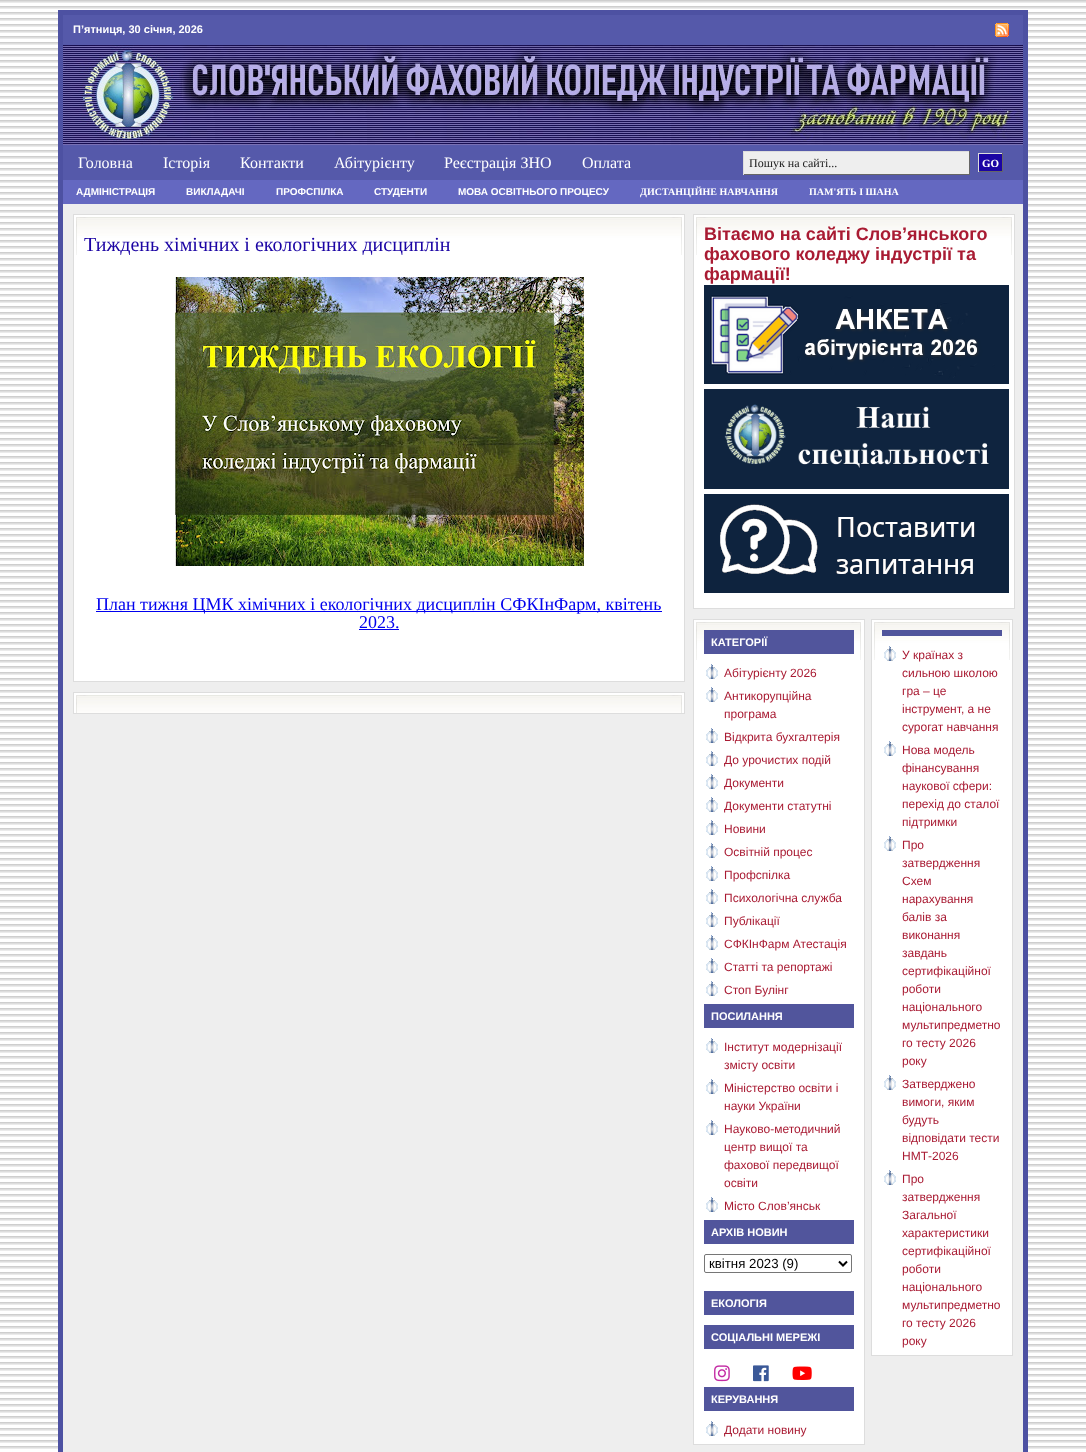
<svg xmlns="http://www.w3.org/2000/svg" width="1086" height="1452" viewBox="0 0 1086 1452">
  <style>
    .t1 { font: bold 11px Liberation Sans; fill: #fff; }
    .t2 { font: 16px Liberation Serif; fill: #fff; }
    .t3 { font: 12px Liberation Serif; fill: #202020; }
    .t4 { font: bold 11px Liberation Serif; fill: #fff; }
    .t5 { font: bold 10px Liberation Sans; fill: #fff; }
    .t6 { font: bold 10px Liberation Serif; fill: #fff; }
    .t7 { font: 20px Liberation Serif; fill: #1b04a4; }
    .t8 { font: 18px Liberation Serif; fill: #00e; }
    .t9 { font: bold 18px Liberation Sans; fill: #a91b33; }
    .t10 { font: 12px Liberation Sans; fill: #a91b33; }
    .t11 { font: 13.25px Liberation Sans; fill: #000; }
  </style>
  <rect width="100%" height="100%" fill="#fff"/>
  <image x="0" y="0" width="1086" height="1449" href="images/1.png"/>
  <rect x="63" y="204" width="960" height="1248" fill="#eee"/>
  <rect x="60.5" y="12.5" width="965" height="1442" fill="none" stroke="#4d51a2" stroke-width="5"/>
  <rect x="63" y="15" width="960" height="30" fill="#5559aa"/>
  <text x="73" y="33" class="t1">П’ятниця, 30 січня, 2026</text>
  <image x="995" y="23" width="14" height="14" href="images/2.png"/>
  <image x="63" y="45" width="960" height="100" href="images/3.png"/>
  <rect x="63" y="145" width="960" height="35" fill="#5559aa"/>
  <text x="78" y="168" class="t2">Головна</text>
  <text x="163" y="168" class="t2">Історія</text>
  <text x="240" y="168" class="t2">Контакти</text>
  <text x="334" y="168" class="t2">Абітурієнту</text>
  <text x="444" y="168" class="t2">Реєстрація ЗНО</text>
  <text x="582" y="168" class="t2">Оплата</text>
  <rect x="744" y="152" width="225" height="22" fill="#eee"/>
  <rect x="743" y="151" width="227" height="1" fill="#ddd"/>
  <rect x="969" y="151" width="1" height="24" fill="#666"/>
  <rect x="743" y="174" width="227" height="1" fill="#666"/>
  <rect x="743" y="151" width="1" height="24" fill="#ddd"/>
  <text x="749" y="167" class="t3">Пошук на сайті...</text>
  <rect x="979" y="154" width="23" height="17" fill="#1b04a4"/>
  <rect x="978" y="153" width="25" height="1" fill="#ddd"/>
  <rect x="1002" y="153" width="1" height="19" fill="#666"/>
  <rect x="978" y="171" width="25" height="1" fill="#666"/>
  <rect x="978" y="153" width="1" height="19" fill="#ddd"/>
  <text x="982" y="167" class="t4">GO</text>
  <rect x="63" y="180" width="960" height="24" fill="#6468c1"/>
  <text x="76" y="195" class="t5">АДМІНІСТРАЦІЯ</text>
  <text x="186" y="195" class="t5">ВИКЛАДАЧІ</text>
  <text x="276" y="195" class="t5">ПРОФСПІЛКА</text>
  <text x="374" y="195" class="t5">СТУДЕНТИ</text>
  <text x="458" y="195" class="t5">МОВА ОСВІТНЬОГО ПРОЦЕСУ</text>
  <text x="640" y="195" class="t6">ДИСТАНЦІЙНЕ НАВЧАННЯ</text>
  <text x="809" y="195" class="t6">ПАМ'ЯТЬ І ШАНА</text>
  <rect x="74" y="215" width="610" height="466" fill="#fff"/>
  <image x="76" y="217" width="606" height="38" href="images/4.png"/>
  <rect x="73.5" y="214.5" width="611" height="467" fill="none" stroke="#ddd"/>
  <text x="84" y="251" class="t7">Тиждень хімічних і екологічних дисциплін</text>
  <image x="175" y="277" width="409" height="289" href="images/5.png"/>
  <rect x="96" y="611" width="566" height="1" fill="#00e"/>
  <text x="96" y="610" class="t8">План тижня ЦМК хімічних і екологічних дисциплін СФКІнФарм, квітень</text>
  <text x="359" y="628" class="t8">2023.</text>
  <rect x="359" y="629" width="40" height="1" fill="#00e"/>
  <rect x="74" y="693" width="610" height="20" fill="#fff"/>
  <image x="76" y="695" width="606" height="18" href="images/6.png"/>
  <rect x="73.5" y="692.5" width="611" height="21" fill="none" stroke="#ddd"/>
  <rect x="694" y="215" width="320" height="393" fill="#fff"/>
  <image x="696" y="217" width="316" height="38" href="images/7.png"/>
  <rect x="693.5" y="214.5" width="321" height="394" fill="none" stroke="#ddd"/>
  <text x="704" y="240" class="t9">Вітаємо на сайті Слов’янського</text>
  <text x="704" y="260" class="t9">фахового коледжу індустрії та</text>
  <text x="704" y="280" class="t9">фармації!</text>
  <image x="704" y="285" width="305" height="99" href="images/8.png"/>
  <image x="704" y="389" width="305" height="100" href="images/9.png"/>
  <image x="704" y="494" width="305" height="99" href="images/10.png"/>
  <rect x="694" y="620" width="170" height="824" fill="#fff"/>
  <image x="696" y="622" width="165" height="38" href="images/11.png"/>
  <rect x="693.5" y="619.5" width="171" height="825" fill="none" stroke="#ddd"/>
  <rect x="704" y="630" width="150" height="24" fill="#51559c"/>
  <text x="711" y="646" class="t1">КАТЕГОРІЇ</text>
  <image x="706" y="664" width="12" height="15" href="images/12.png"/>
  <text x="724" y="677" class="t10">Абітурієнту 2026</text>
  <image x="706" y="687" width="12" height="15" href="images/12.png"/>
  <text x="724" y="700" class="t10">Антикорупційна</text>
  <text x="724" y="718" class="t10">програма</text>
  <image x="706" y="728" width="12" height="15" href="images/12.png"/>
  <text x="724" y="741" class="t10">Відкрита бухгалтерія</text>
  <image x="706" y="751" width="12" height="15" href="images/12.png"/>
  <text x="724" y="764" class="t10">До урочистих подій</text>
  <image x="706" y="774" width="12" height="15" href="images/12.png"/>
  <text x="724" y="787" class="t10">Документи</text>
  <image x="706" y="797" width="12" height="15" href="images/12.png"/>
  <text x="724" y="810" class="t10">Документи статутні</text>
  <image x="706" y="820" width="12" height="15" href="images/12.png"/>
  <text x="724" y="833" class="t10">Новини</text>
  <image x="706" y="843" width="12" height="15" href="images/12.png"/>
  <text x="724" y="856" class="t10">Освітній процес</text>
  <image x="706" y="866" width="12" height="15" href="images/12.png"/>
  <text x="724" y="879" class="t10">Профспілка</text>
  <image x="706" y="889" width="12" height="15" href="images/12.png"/>
  <text x="724" y="902" class="t10">Психологічна служба</text>
  <image x="706" y="912" width="12" height="15" href="images/12.png"/>
  <text x="724" y="925" class="t10">Публікації</text>
  <image x="706" y="935" width="12" height="15" href="images/12.png"/>
  <text x="724" y="948" class="t10">СФКІнФарм Атестація</text>
  <image x="706" y="958" width="12" height="15" href="images/12.png"/>
  <text x="724" y="971" class="t10">Статті та репортажі</text>
  <image x="706" y="981" width="12" height="15" href="images/12.png"/>
  <text x="724" y="994" class="t10">Стоп Булінг</text>
  <rect x="704" y="1004" width="150" height="24" fill="#51559c"/>
  <text x="711" y="1020" class="t1">ПОСИЛАННЯ</text>
  <image x="706" y="1038" width="12" height="15" href="images/12.png"/>
  <text x="724" y="1051" class="t10">Інститут модернізації</text>
  <text x="724" y="1069" class="t10">змісту освіти</text>
  <image x="706" y="1079" width="12" height="15" href="images/12.png"/>
  <text x="724" y="1092" class="t10">Міністерство освіти і</text>
  <text x="724" y="1110" class="t10">науки України</text>
  <image x="706" y="1120" width="12" height="15" href="images/12.png"/>
  <text x="724" y="1133" class="t10">Науково-методичний</text>
  <text x="724" y="1151" class="t10">центр вищої та</text>
  <text x="724" y="1169" class="t10">фахової передвищої</text>
  <text x="724" y="1187" class="t10">освіти</text>
  <image x="706" y="1197" width="12" height="15" href="images/12.png"/>
  <text x="724" y="1210" class="t10">Місто Слов’янськ</text>
  <rect x="704" y="1220" width="150" height="24" fill="#51559c"/>
  <text x="711" y="1236" class="t1">АРХІВ НОВИН</text>
  <rect x="704.5" y="1254.5" width="147" height="18" rx="1.5" fill="none" stroke="#767676"/>
  <path d="M839 1261.5L843 1265.5L847 1261.5" fill="none" stroke="#000" stroke-width="2"/>
  <text x="709" y="1268" class="t11">квітня 2023 (9)</text>
  <rect x="704" y="1291" width="150" height="24" fill="#51559c"/>
  <text x="711" y="1307" class="t1">ЕКОЛОГІЯ</text>
  <rect x="704" y="1325" width="150" height="24" fill="#51559c"/>
  <text x="711" y="1341" class="t1">СОЦІАЛЬНІ МЕРЕЖІ</text>
  <image x="714" y="1365" width="16" height="17" href="images/13.png"/>
  <image x="753" y="1365" width="16" height="17" href="images/14.png"/>
  <image x="792" y="1366" width="20" height="14" href="images/15.png"/>
  <rect x="704" y="1387" width="150" height="24" fill="#51559c"/>
  <text x="711" y="1403" class="t1">КЕРУВАННЯ</text>
  <image x="706" y="1421" width="12" height="15" href="images/12.png"/>
  <text x="724" y="1434" class="t10">Додати новину</text>
  <rect x="872" y="620" width="140" height="735" fill="#fff"/>
  <image x="874" y="622" width="136" height="38" href="images/16.png"/>
  <rect x="871.5" y="619.5" width="141" height="736" fill="none" stroke="#ddd"/>
  <rect x="882" y="630" width="120" height="6" fill="#51559c"/>
  <image x="884" y="646" width="12" height="15" href="images/12.png"/>
  <text x="902" y="659" class="t10">У країнах з</text>
  <text x="902" y="677" class="t10">сильною школою</text>
  <text x="902" y="695" class="t10">гра – це</text>
  <text x="902" y="713" class="t10">інструмент, а не</text>
  <text x="902" y="731" class="t10">сурогат навчання</text>
  <image x="884" y="741" width="12" height="15" href="images/12.png"/>
  <text x="902" y="754" class="t10">Нова модель</text>
  <text x="902" y="772" class="t10">фінансування</text>
  <text x="902" y="790" class="t10">наукової сфери:</text>
  <text x="902" y="808" class="t10">перехід до сталої</text>
  <text x="902" y="826" class="t10">підтримки</text>
  <image x="884" y="836" width="12" height="15" href="images/12.png"/>
  <text x="902" y="849" class="t10">Про</text>
  <text x="902" y="867" class="t10">затвердження</text>
  <text x="902" y="885" class="t10">Схем</text>
  <text x="902" y="903" class="t10">нарахування</text>
  <text x="902" y="921" class="t10">балів за</text>
  <text x="902" y="939" class="t10">виконання</text>
  <text x="902" y="957" class="t10">завдань</text>
  <text x="902" y="975" class="t10">сертифікаційної</text>
  <text x="902" y="993" class="t10">роботи</text>
  <text x="902" y="1011" class="t10">національного</text>
  <text x="902" y="1029" class="t10">мультипредметно</text>
  <text x="902" y="1047" class="t10">го тесту 2026</text>
  <text x="902" y="1065" class="t10">року</text>
  <image x="884" y="1075" width="12" height="15" href="images/12.png"/>
  <text x="902" y="1088" class="t10">Затверджено</text>
  <text x="902" y="1106" class="t10">вимоги, яким</text>
  <text x="902" y="1124" class="t10">будуть</text>
  <text x="902" y="1142" class="t10">відповідати тести</text>
  <text x="902" y="1160" class="t10">НМТ-2026</text>
  <image x="884" y="1170" width="12" height="15" href="images/12.png"/>
  <text x="902" y="1183" class="t10">Про</text>
  <text x="902" y="1201" class="t10">затвердження</text>
  <text x="902" y="1219" class="t10">Загальної</text>
  <text x="902" y="1237" class="t10">характеристики</text>
  <text x="902" y="1255" class="t10">сертифікаційної</text>
  <text x="902" y="1273" class="t10">роботи</text>
  <text x="902" y="1291" class="t10">національного</text>
  <text x="902" y="1309" class="t10">мультипредметно</text>
  <text x="902" y="1327" class="t10">го тесту 2026</text>
  <text x="902" y="1345" class="t10">року</text>
</svg>
